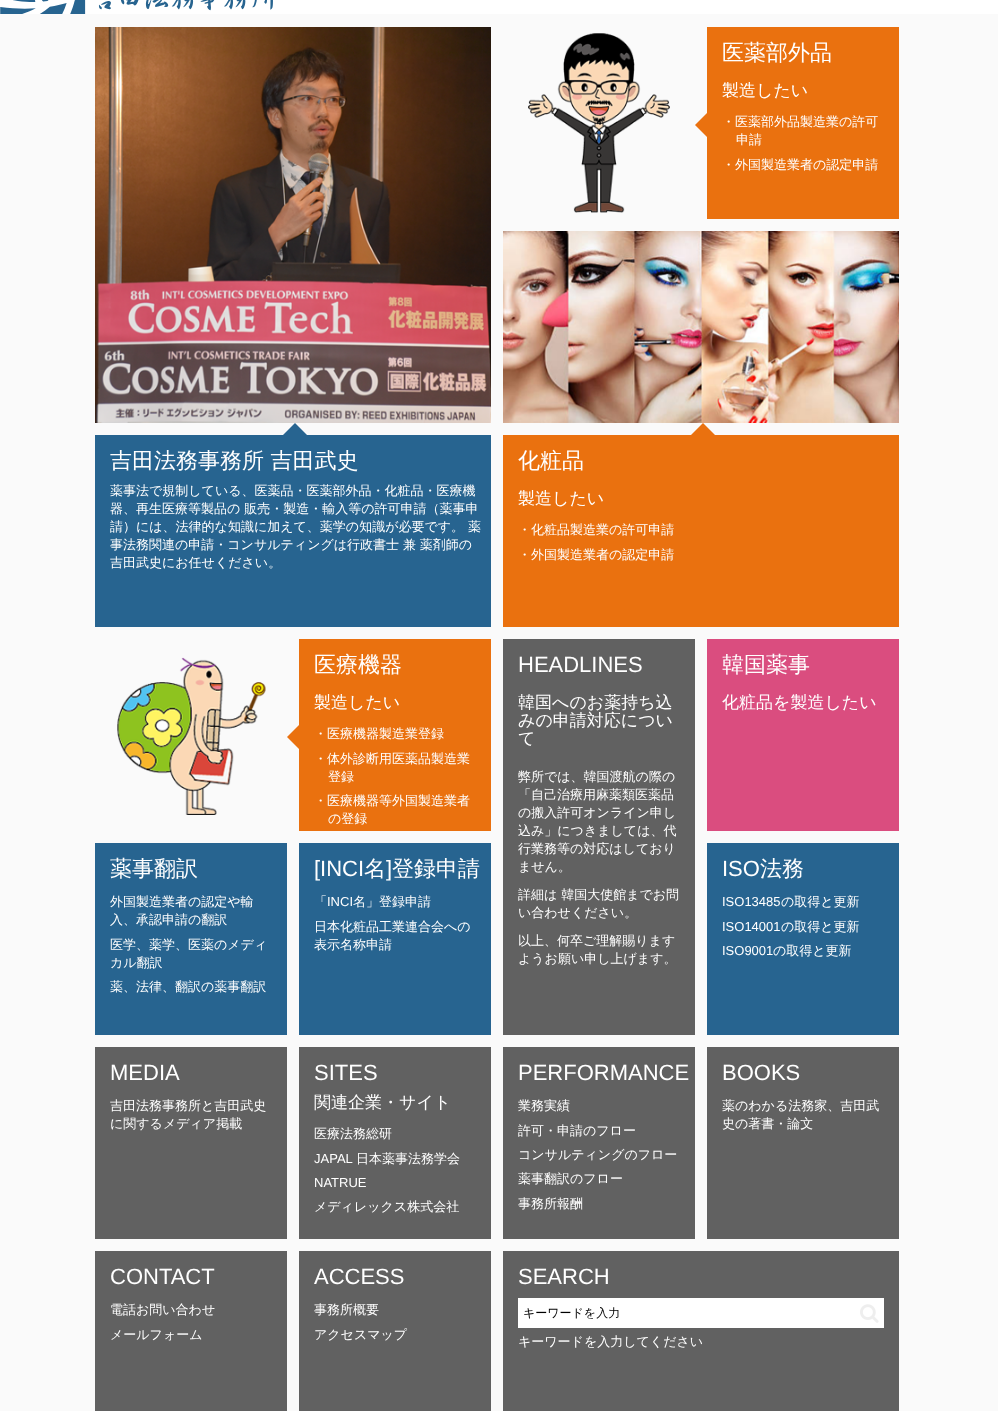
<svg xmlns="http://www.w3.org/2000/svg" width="998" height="1411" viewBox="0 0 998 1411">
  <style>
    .t1 { font: 500 22px WenQuanYi Zen Hei; fill: #fff; }
    .t2 { font: 500 17px WenQuanYi Zen Hei; fill: #fff; }
    .t3 { font: 500 13px WenQuanYi Zen Hei; fill: #fff; }
    .t4 { font: 22px Liberation Sans; fill: #fff; }
    .t5 { font: 13px Liberation Sans; fill: #fff; }
    .t6 { font: 500 12px WenQuanYi Zen Hei; fill: #000; }
  </style>
  <rect width="100%" height="100%" fill="#fafafa"/>
  <rect x="0" y="0" width="998" height="14" fill="#fff"/>
  <image x="0" y="0" width="273" height="14" href="images/1.png"/>
  <image x="528" y="33" width="142" height="180" href="images/2.png"/>
  <rect x="707" y="27" width="192" height="192" fill="#ea710f"/>
  <text x="722" y="60" class="t1">医薬部外品</text>
  <path d="M707 113V137L695 125Z" fill="#ea710f"/>
  <text x="722" y="96" class="t2">製造したい</text>
  <text x="722" y="126" class="t3">・医薬部外品製造業の許可</text>
  <text x="736" y="144" class="t3">申請</text>
  <text x="722" y="169" class="t3">・外国製造業者の認定申請</text>
  <image x="95" y="27" width="396" height="396" href="images/3.png"/>
  <rect x="95" y="435" width="396" height="192" fill="#276490"/>
  <path d="M307 435H283L295 423Z" fill="#276490"/>
  <text x="110" y="468" class="t1">吉田法務事務所 吉田武史</text>
  <text x="110" y="495" class="t3">薬事法で規制している、医薬品・医薬部外品・化粧品・医療機</text>
  <text x="110" y="513" class="t3">器、再生医療等製品の 販売・製造・輸入等の許可申請（薬事申</text>
  <text x="110" y="531" class="t3">請）には、法律的な知識に加えて、薬学の知識が必要です。 薬</text>
  <text x="110" y="549" class="t3">事法務関連の申請・コンサルティングは行政書士 兼 薬剤師の</text>
  <text x="110" y="567" class="t3">吉田武史にお任せください。</text>
  <image x="503" y="231" width="396" height="192" href="images/4.png"/>
  <image x="503" y="258" width="396" height="165" href="images/5.png"/>
  <rect x="503" y="435" width="396" height="192" fill="#ea710f"/>
  <path d="M715 435H691L703 423Z" fill="#ea710f"/>
  <text x="518" y="468" class="t1">化粧品</text>
  <text x="518" y="504" class="t2">製造したい</text>
  <text x="518" y="534" class="t3">・化粧品製造業の許可申請</text>
  <text x="518" y="559" class="t3">・外国製造業者の認定申請</text>
  <rect x="95" y="843" width="192" height="192" fill="#276490"/>
  <text x="110" y="876" class="t1">薬事翻訳</text>
  <text x="110" y="906" class="t3">外国製造業者の認定や輸</text>
  <text x="110" y="924" class="t3">入、承認申請の翻訳</text>
  <text x="110" y="949" class="t3">医学、薬学、医薬のメディ</text>
  <text x="110" y="967" class="t3">カル翻訳</text>
  <text x="110" y="991" class="t3">薬、法律、翻訳の薬事翻訳</text>
  <image x="117" y="657" width="149" height="158" href="images/6.png"/>
  <rect x="299" y="639" width="192" height="192" fill="#ea710f"/>
  <text x="314" y="672" class="t1">医療機器</text>
  <path d="M299 725V749L287 737Z" fill="#ea710f"/>
  <text x="314" y="708" class="t2">製造したい</text>
  <text x="314" y="738" class="t3">・医療機器製造業登録</text>
  <text x="314" y="763" class="t3">・体外診断用医薬品製造業</text>
  <text x="328" y="781" class="t3">登録</text>
  <text x="314" y="805" class="t3">・医療機器等外国製造業者</text>
  <text x="328" y="823" class="t3">の登録</text>
  <rect x="503" y="639" width="192" height="396" fill="#616161"/>
  <text x="518" y="672" class="t4">HEADLINES</text>
  <text x="518" y="708" class="t2">韓国へのお薬持ち込</text>
  <text x="518" y="726" class="t2">みの申請対応につい</text>
  <text x="518" y="744" class="t2">て</text>
  <text x="518" y="781" class="t3">弊所では、韓国渡航の際の</text>
  <text x="518" y="799" class="t3">「自己治療用麻薬類医薬品</text>
  <text x="518" y="817" class="t3">の搬入許可オンライン申し</text>
  <text x="518" y="835" class="t3">込み」につきましては、代</text>
  <text x="518" y="853" class="t3">行業務等の対応はしており</text>
  <text x="518" y="871" class="t3">ません。</text>
  <text x="518" y="899" class="t3">詳細は 韓国大使館までお問</text>
  <text x="518" y="917" class="t3">い合わせください。</text>
  <text x="518" y="945" class="t3">以上、何卒ご理解賜ります</text>
  <text x="518" y="963" class="t3">ようお願い申し上げます。</text>
  <rect x="707" y="639" width="192" height="192" fill="#da4d7f"/>
  <text x="722" y="672" class="t1">韓国薬事</text>
  <text x="722" y="708" class="t2">化粧品を製造したい</text>
  <rect x="299" y="843" width="192" height="192" fill="#276490"/>
  <text x="314" y="876" class="t4">[INCI</text>
  <text x="364" y="876" class="t1">名</text>
  <text x="386" y="876" class="t4">]</text>
  <text x="392" y="876" class="t1">登録申請</text>
  <text x="314" y="906" class="t3">「</text>
  <text x="327" y="906" class="t5">INCI</text>
  <text x="353" y="906" class="t3">名」登録申請</text>
  <text x="314" y="931" class="t3">日本化粧品工業連合会への</text>
  <text x="314" y="949" class="t3">表示名称申請</text>
  <rect x="707" y="843" width="192" height="192" fill="#276490"/>
  <text x="722" y="876" class="t4">ISO</text>
  <text x="760" y="876" class="t1">法務</text>
  <text x="722" y="906" class="t5">ISO13485</text>
  <text x="781" y="906" class="t3">の取得と更新</text>
  <text x="722" y="931" class="t5">ISO14001</text>
  <text x="781" y="931" class="t3">の取得と更新</text>
  <text x="722" y="955" class="t5">ISO9001</text>
  <text x="773" y="955" class="t3">の取得と更新</text>
  <rect x="95" y="1047" width="192" height="192" fill="#616161"/>
  <text x="110" y="1080" class="t4">MEDIA</text>
  <text x="110" y="1110" class="t3">吉田法務事務所と吉田武史</text>
  <text x="110" y="1128" class="t3">に関するメディア掲載</text>
  <rect x="299" y="1047" width="192" height="192" fill="#616161"/>
  <text x="314" y="1080" class="t4">SITES</text>
  <text x="314" y="1108" class="t2">関連企業・サイト</text>
  <text x="314" y="1138" class="t3">医療法務総研</text>
  <text x="314" y="1163" class="t5">JAPAL</text>
  <text x="356" y="1163" class="t3">日本薬事法務学会</text>
  <text x="314" y="1187" class="t5">NATRUE</text>
  <text x="314" y="1211" class="t3">メディレックス株式会社</text>
  <rect x="503" y="1047" width="192" height="192" fill="#616161"/>
  <text x="518" y="1080" class="t4">PERFORMANCE</text>
  <text x="518" y="1110" class="t3">業務実績</text>
  <text x="518" y="1135" class="t3">許可・申請のフロー</text>
  <text x="518" y="1159" class="t3">コンサルティングのフロー</text>
  <text x="518" y="1183" class="t3">薬事翻訳のフロー</text>
  <text x="518" y="1208" class="t3">事務所報酬</text>
  <rect x="707" y="1047" width="192" height="192" fill="#616161"/>
  <text x="722" y="1080" class="t4">BOOKS</text>
  <text x="722" y="1110" class="t3">薬のわかる法務家、吉田武</text>
  <text x="722" y="1128" class="t3">史の著書・論文</text>
  <rect x="95" y="1251" width="192" height="160" fill="#616161"/>
  <text x="110" y="1284" class="t4">CONTACT</text>
  <text x="110" y="1314" class="t3">電話お問い合わせ</text>
  <text x="110" y="1339" class="t3">メールフォーム</text>
  <rect x="299" y="1251" width="192" height="160" fill="#616161"/>
  <text x="314" y="1284" class="t4">ACCESS</text>
  <text x="314" y="1314" class="t3">事務所概要</text>
  <text x="314" y="1339" class="t3">アクセスマップ</text>
  <rect x="503" y="1251" width="396" height="160" fill="#616161"/>
  <text x="518" y="1284" class="t4">SEARCH</text>
  <rect x="518" y="1298" width="366" height="30" fill="#fff"/>
  <text x="523" y="1317" class="t6">キーワードを入力</text>
  <image x="860" y="1304" width="19" height="19" href="images/7.png"/>
  <text x="518" y="1346" class="t3">キーワードを入力してください</text>
</svg>
